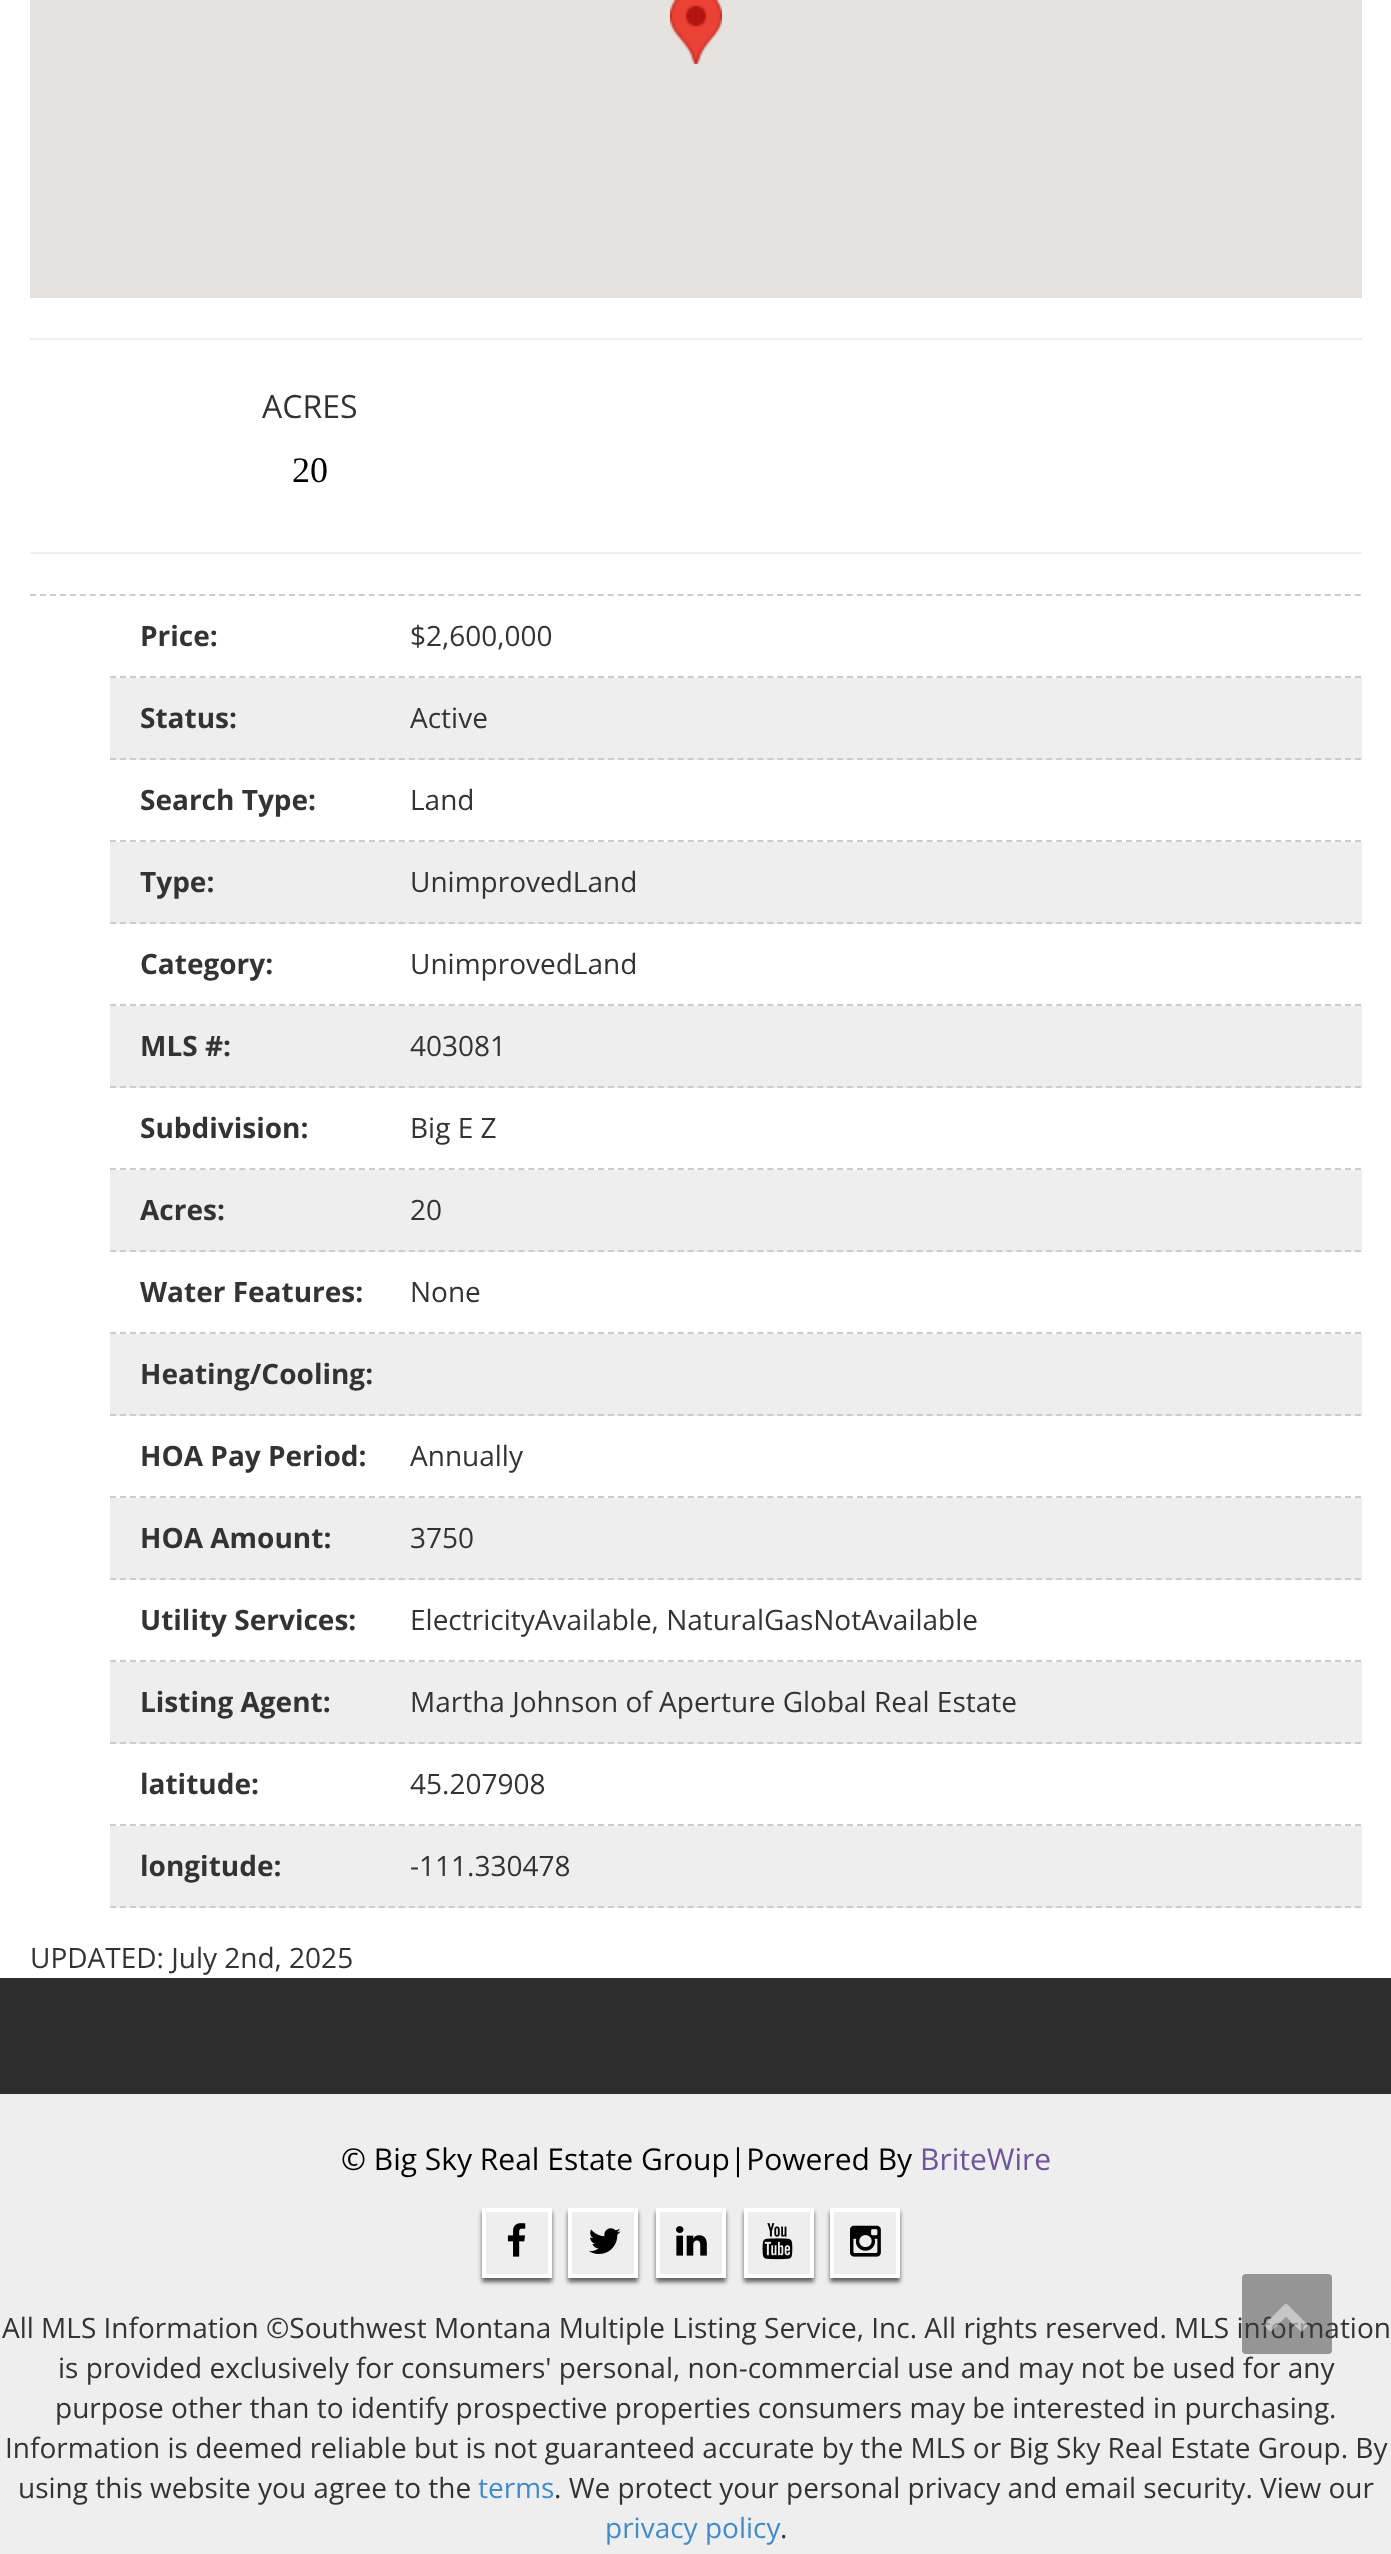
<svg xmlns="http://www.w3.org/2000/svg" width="1391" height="2554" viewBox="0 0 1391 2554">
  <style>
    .t1 { font: 32px Open Sans; fill: #333; }
    .t2 { font: 36px Liberation Serif; fill: #000; }
    .t3 { font: bold 28px Open Sans; fill: #333; }
    .t4 { font: 28px Open Sans; fill: #333; }
    .t5 { font: 30px Open Sans; fill: #000; }
    .t6 { font: 30px Open Sans; fill: #6f5499; }
    .t7 { font: 28px Open Sans; fill: #428bca; }
  </style>
  <defs>
    <clipPath id="clip1"><path d="M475 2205H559V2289H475ZM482 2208H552V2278H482Z" clip-rule="evenodd"/></clipPath>
    <clipPath id="clip2"><path d="M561 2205H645V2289H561ZM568 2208H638V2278H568Z" clip-rule="evenodd"/></clipPath>
    <clipPath id="clip3"><path d="M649 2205H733V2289H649ZM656 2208H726V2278H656Z" clip-rule="evenodd"/></clipPath>
    <clipPath id="clip4"><path d="M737 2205H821V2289H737ZM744 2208H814V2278H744Z" clip-rule="evenodd"/></clipPath>
    <clipPath id="clip5"><path d="M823 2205H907V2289H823ZM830 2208H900V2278H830Z" clip-rule="evenodd"/></clipPath>
  </defs>
  <rect width="100%" height="100%" fill="#fff"/>
  <rect x="30" y="0" width="1332" height="298" fill="#e5e3df"/>
  <image x="670" y="0" width="52" height="64" href="images/1.png"/>
  <rect x="30" y="338" width="1332" height="2" fill="#eee"/>
  <text x="262" y="418" class="t1">ACRES</text>
  <text x="292" y="482" class="t2">20</text>
  <rect x="30" y="552" width="1332" height="2" fill="#eee"/>
  <path d="M30 595H1362" fill="none" stroke="#cfcbcb" stroke-width="2" stroke-dasharray="6 3.96"/>
  <path d="M110 677H1362" fill="none" stroke="#cfcbcb" stroke-width="2" stroke-dasharray="6 3.96"/>
  <text x="140" y="646" class="t3">Price:</text>
  <text x="410" y="646" class="t4">$2,600,000</text>
  <rect x="110" y="678" width="1252" height="82" fill="#eee"/>
  <path d="M110 759H1362" fill="none" stroke="#cfcbcb" stroke-width="2" stroke-dasharray="6 3.96"/>
  <text x="140" y="728" class="t3">Status:</text>
  <text x="410" y="728" class="t4">Active</text>
  <path d="M110 841H1362" fill="none" stroke="#cfcbcb" stroke-width="2" stroke-dasharray="6 3.96"/>
  <text x="140" y="810" class="t3">Search Type:</text>
  <text x="410" y="810" class="t4">Land</text>
  <rect x="110" y="842" width="1252" height="82" fill="#eee"/>
  <path d="M110 923H1362" fill="none" stroke="#cfcbcb" stroke-width="2" stroke-dasharray="6 3.96"/>
  <text x="140" y="892" class="t3">Type:</text>
  <text x="410" y="892" class="t4">UnimprovedLand</text>
  <path d="M110 1005H1362" fill="none" stroke="#cfcbcb" stroke-width="2" stroke-dasharray="6 3.96"/>
  <text x="140" y="974" class="t3">Category:</text>
  <text x="410" y="974" class="t4">UnimprovedLand</text>
  <rect x="110" y="1006" width="1252" height="82" fill="#eee"/>
  <path d="M110 1087H1362" fill="none" stroke="#cfcbcb" stroke-width="2" stroke-dasharray="6 3.96"/>
  <text x="140" y="1056" class="t3">MLS #:</text>
  <text x="410" y="1056" class="t4">403081</text>
  <path d="M110 1169H1362" fill="none" stroke="#cfcbcb" stroke-width="2" stroke-dasharray="6 3.96"/>
  <text x="140" y="1138" class="t3">Subdivision:</text>
  <text x="410" y="1138" class="t4">Big E Z</text>
  <rect x="110" y="1170" width="1252" height="82" fill="#eee"/>
  <path d="M110 1251H1362" fill="none" stroke="#cfcbcb" stroke-width="2" stroke-dasharray="6 3.96"/>
  <text x="140" y="1220" class="t3">Acres:</text>
  <text x="410" y="1220" class="t4">20</text>
  <path d="M110 1333H1362" fill="none" stroke="#cfcbcb" stroke-width="2" stroke-dasharray="6 3.96"/>
  <text x="140" y="1302" class="t3">Water Features:</text>
  <text x="410" y="1302" class="t4">None</text>
  <rect x="110" y="1334" width="1252" height="82" fill="#eee"/>
  <path d="M110 1415H1362" fill="none" stroke="#cfcbcb" stroke-width="2" stroke-dasharray="6 3.96"/>
  <text x="140" y="1384" class="t3">Heating/Cooling:</text>
  <path d="M110 1497H1362" fill="none" stroke="#cfcbcb" stroke-width="2" stroke-dasharray="6 3.96"/>
  <text x="140" y="1466" class="t3">HOA Pay Period:</text>
  <text x="410" y="1466" class="t4">Annually</text>
  <rect x="110" y="1498" width="1252" height="82" fill="#eee"/>
  <path d="M110 1579H1362" fill="none" stroke="#cfcbcb" stroke-width="2" stroke-dasharray="6 3.96"/>
  <text x="140" y="1548" class="t3">HOA Amount:</text>
  <text x="410" y="1548" class="t4">3750</text>
  <path d="M110 1661H1362" fill="none" stroke="#cfcbcb" stroke-width="2" stroke-dasharray="6 3.96"/>
  <text x="140" y="1630" class="t3">Utility Services:</text>
  <text x="410" y="1630" class="t4">ElectricityAvailable, NaturalGasNotAvailable</text>
  <rect x="110" y="1662" width="1252" height="82" fill="#eee"/>
  <path d="M110 1743H1362" fill="none" stroke="#cfcbcb" stroke-width="2" stroke-dasharray="6 3.96"/>
  <text x="140" y="1712" class="t3">Listing Agent:</text>
  <text x="410" y="1712" class="t4">Martha Johnson of Aperture Global Real Estate</text>
  <path d="M110 1825H1362" fill="none" stroke="#cfcbcb" stroke-width="2" stroke-dasharray="6 3.96"/>
  <text x="140" y="1794" class="t3">latitude:</text>
  <text x="410" y="1794" class="t4">45.207908</text>
  <rect x="110" y="1826" width="1252" height="82" fill="#eee"/>
  <path d="M110 1907H1362" fill="none" stroke="#cfcbcb" stroke-width="2" stroke-dasharray="6 3.96"/>
  <text x="140" y="1876" class="t3">longitude:</text>
  <text x="410" y="1876" class="t4">-111.330478</text>
  <text x="30" y="1968" class="t4">UPDATED: July 2nd, 2025</text>
  <rect x="0" y="1978" width="1391" height="116" fill="#2e2e2e"/>
  <rect x="0" y="2094" width="1391" height="460" fill="#eee"/>
  <text x="341" y="2170" class="t5">© Big Sky Real Estate Group|Powered By</text>
  <text x="920" y="2170" class="t6">BriteWire</text>
  <g clip-path="url(#clip1)">
    <rect x="482" y="2212" width="70" height="70" fill="#00000099" filter="blur(2px)"/>
  </g>
  <rect x="484" y="2210" width="66" height="66" fill="none" stroke="#fff" stroke-width="4"/>
  <image x="507" y="2223" width="19" height="34" href="images/2.png"/>
  <g clip-path="url(#clip2)">
    <rect x="568" y="2212" width="70" height="70" fill="#00000099" filter="blur(2px)"/>
  </g>
  <rect x="570" y="2210" width="66" height="66" fill="none" stroke="#fff" stroke-width="4"/>
  <image x="589" y="2228" width="32" height="26" href="images/3.png"/>
  <g clip-path="url(#clip3)">
    <rect x="656" y="2212" width="70" height="70" fill="#00000099" filter="blur(2px)"/>
  </g>
  <rect x="658" y="2210" width="66" height="66" fill="none" stroke="#fff" stroke-width="4"/>
  <image x="676" y="2226" width="31" height="30" href="images/4.png"/>
  <g clip-path="url(#clip4)">
    <rect x="744" y="2212" width="70" height="70" fill="#00000099" filter="blur(2px)"/>
  </g>
  <rect x="746" y="2210" width="66" height="66" fill="none" stroke="#fff" stroke-width="4"/>
  <image x="762" y="2223" width="31" height="37" href="images/5.png"/>
  <g clip-path="url(#clip5)">
    <rect x="830" y="2212" width="70" height="70" fill="#00000099" filter="blur(2px)"/>
  </g>
  <rect x="832" y="2210" width="66" height="66" fill="none" stroke="#fff" stroke-width="4"/>
  <image x="850" y="2225" width="31" height="32" href="images/6.png"/>
  <text x="2" y="2338" class="t4">All MLS Information ©Southwest Montana Multiple Listing Service, Inc. All rights reserved. MLS information</text>
  <text x="58" y="2378" class="t4">is provided exclusively for consumers' personal, non-commercial use and may not be used for any</text>
  <text x="55" y="2418" class="t4">purpose other than to identify prospective properties consumers may be interested in purchasing.</text>
  <text x="5" y="2458" class="t4">Information is deemed reliable but is not guaranteed accurate by the MLS or Big Sky Real Estate Group. By</text>
  <text x="18" y="2498" class="t4">using this website you agree to the</text>
  <text x="478" y="2498" class="t7">terms</text>
  <text x="554" y="2498" class="t4">. We protect your personal privacy and email security. View our</text>
  <text x="605" y="2538" class="t7">privacy policy</text>
  <text x="780" y="2538" class="t4">.</text>
  <rect x="1242" y="2274" width="90" height="80" rx="4" fill="#3b3b3b80"/>
  <image x="1264" y="2303" width="44" height="29" href="images/7.png"/>
</svg>
